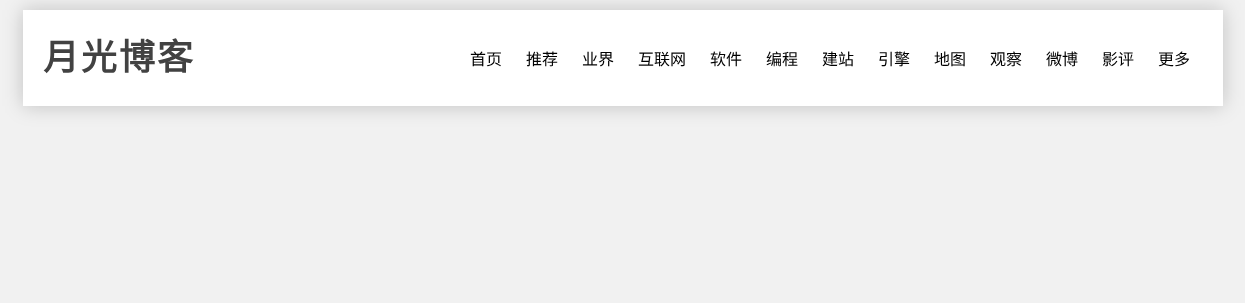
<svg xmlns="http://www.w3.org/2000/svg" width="1245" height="303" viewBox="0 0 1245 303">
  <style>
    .t1 { font: bold 36px Noto Sans CJK SC; letter-spacing: 2px; fill: #424242; }
    .t2 { font: 16px Noto Sans CJK SC; fill: #000; }
  </style>
  <rect width="100%" height="100%" fill="#f1f1f1"/>
  <rect x="23" y="10" width="1200" height="96" fill="#00000033" filter="blur(10px)"/>
  <rect x="23" y="10" width="1200" height="96" fill="#fff"/>
  <text x="43" y="70" class="t1">月光博客</text>
  <text x="470" y="65" class="t2">首页</text>
  <text x="526" y="65" class="t2">推荐</text>
  <text x="582" y="65" class="t2">业界</text>
  <text x="638" y="65" class="t2">互联网</text>
  <text x="710" y="65" class="t2">软件</text>
  <text x="766" y="65" class="t2">编程</text>
  <text x="822" y="65" class="t2">建站</text>
  <text x="878" y="65" class="t2">引擎</text>
  <text x="934" y="65" class="t2">地图</text>
  <text x="990" y="65" class="t2">观察</text>
  <text x="1046" y="65" class="t2">微博</text>
  <text x="1102" y="65" class="t2">影评</text>
  <text x="1158" y="65" class="t2">更多</text>
</svg>
